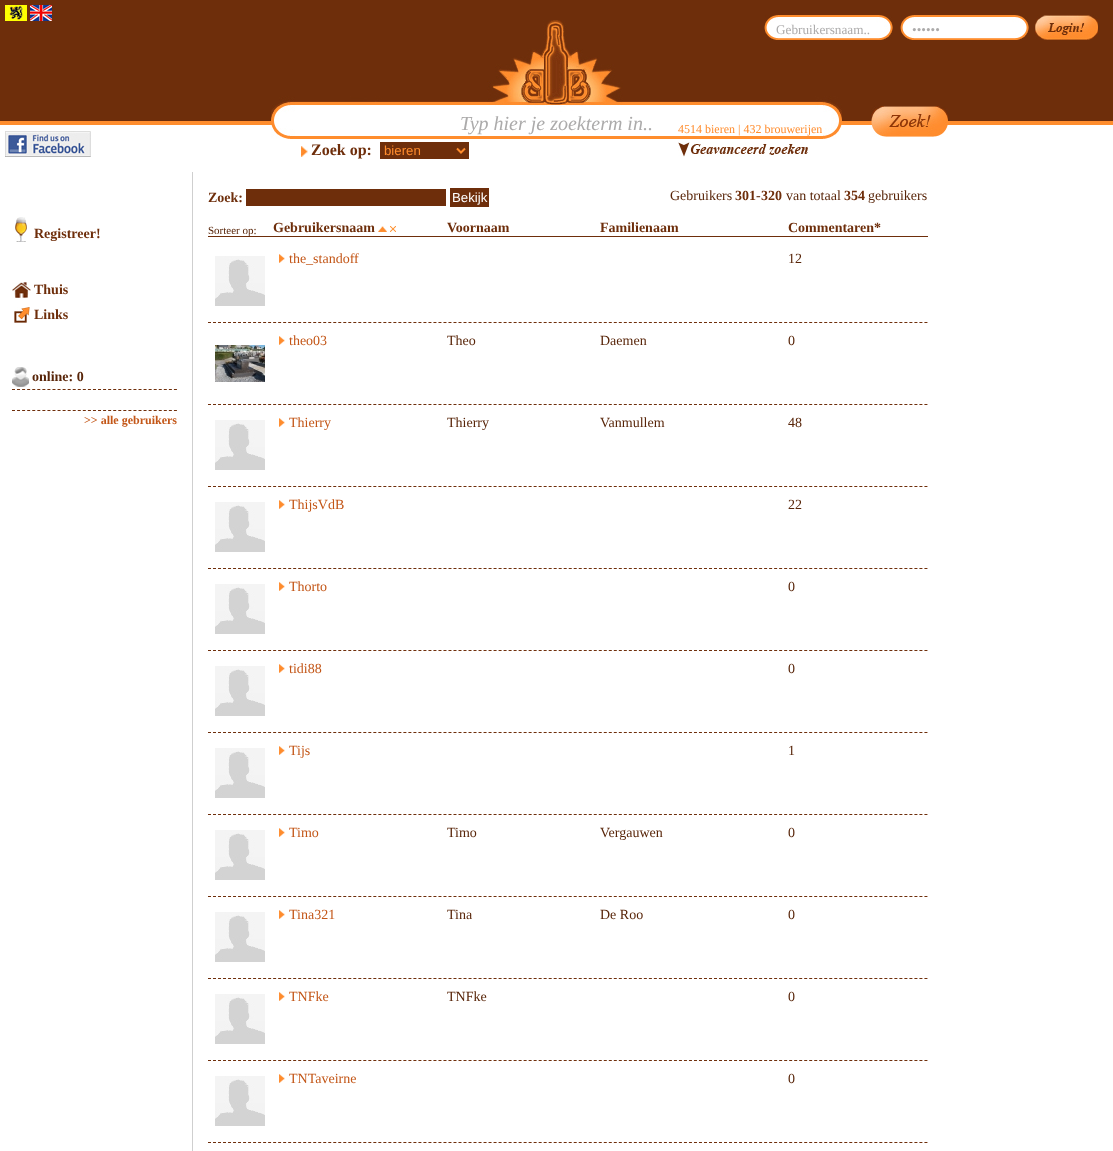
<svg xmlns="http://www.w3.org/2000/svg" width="1113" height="1151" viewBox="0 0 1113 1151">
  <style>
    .t1 { font: 13.25px Liberation Serif; fill: #acabab; }
    .t2 { font: italic 20px Liberation Serif; fill: #acabab; }
    .t3 { font: 12px Liberation Serif; fill: #ff8c2d; }
    .t4 { font: bold 16px Liberation Serif; fill: #6e2e0b; }
    .t5 { font: 13.25px Liberation Sans; fill: #ff8c2d; }
    .t6 { font: bold 14px Liberation Serif; fill: #6e2e0b; }
    .t7 { font: bold 14px Liberation Serif; fill: #582509; }
    .t8 { font: bold 12px Liberation Serif; fill: #c35617; }
    .t9 { font: 13.25px Liberation Sans; fill: #fff; }
    .t10 { font: 14px Liberation Serif; fill: #582509; }
    .t11 { font: 11px Liberation Serif; fill: #582509; }
    .t12 { font: 14px Liberation Serif; fill: #c35617; }
  </style>
  <rect width="100%" height="100%" fill="#fff"/>
  <image x="0" y="0" width="1113" height="125" href="images/1.png"/>
  <image x="5" y="131" width="86" height="26" href="images/2.png"/>
  <image x="5" y="5" width="22" height="16" href="images/3.png"/>
  <image x="30" y="5" width="22" height="16" href="images/4.png"/>
  <image x="271" y="20" width="571" height="119" href="images/7.png"/>
  <image x="764" y="15" width="129" height="25" href="images/5.png"/>
  <text x="776" y="34" class="t1">Gebruikersnaam..</text>
  <image x="900" y="15" width="129" height="25" href="images/5.png"/>
  <text x="912" y="34" class="t1">••••••</text>
  <image x="1035" y="15" width="63" height="25" href="images/6.png"/>
  <text x="460" y="130" class="t2">Typ hier je zoekterm in..</text>
  <text x="678" y="133" class="t3">4514 bieren | 432 brouwerijen</text>
  <image x="871" y="106" width="77" height="31" href="images/8.png"/>
  <image x="301" y="146" width="7" height="11" href="images/9.png"/>
  <text x="311" y="155" class="t4">Zoek op:</text>
  <rect x="380" y="142" width="89" height="17" fill="#6e2e0b"/>
  <path d="M457 148.5L461 152.5L465 148.5" fill="none" stroke="#ff8c2d" stroke-width="2"/>
  <text x="384" y="155" class="t5">bieren</text>
  <image x="678" y="142" width="130" height="15" href="images/10.png"/>
  <image x="15" y="217" width="12" height="25" href="images/11.png"/>
  <text x="34" y="238" class="t6">Registreer!</text>
  <image x="12" y="282" width="19" height="16" href="images/12.png"/>
  <text x="34" y="294" class="t6">Thuis</text>
  <image x="14" y="307" width="16" height="16" href="images/13.png"/>
  <text x="34" y="319" class="t6">Links</text>
  <image x="12" y="367" width="17" height="20" href="images/14.png"/>
  <text x="32" y="381" class="t7">online: 0</text>
  <path d="M12 389.5H177" fill="none" stroke="#6e2e0b" stroke-dasharray="3 2.06"/>
  <path d="M12 410.5H177" fill="none" stroke="#6e2e0b" stroke-dasharray="3 2.06"/>
  <text x="84" y="424" class="t8">&gt;&gt; alle gebruikers</text>
  <rect x="192" y="172" width="1" height="979" fill="#cfcfcf"/>
  <text x="208" y="202" class="t6">Zoek:</text>
  <rect x="246" y="189" width="200" height="17" fill="#6e2e0b"/>
  <rect x="450" y="188" width="39" height="19" fill="#6e2e0b"/>
  <text x="452" y="202" class="t9">Bekijk</text>
  <text x="670" y="200" class="t10">Gebruikers</text>
  <text x="735" y="200" class="t6">301</text>
  <text x="756" y="200" class="t10">-</text>
  <text x="761" y="200" class="t6">320</text>
  <text x="786" y="200" class="t10">van totaal</text>
  <text x="844" y="200" class="t6">354</text>
  <text x="868" y="200" class="t10">gebruikers</text>
  <rect x="208" y="236" width="720" height="1" fill="#6e2e0b"/>
  <text x="208" y="234" class="t11">Sorteer op:</text>
  <text x="273" y="232" class="t6">Gebruikersnaam</text>
  <image x="378" y="226" width="9" height="6" href="images/15.png"/>
  <image x="390" y="226" width="6" height="6" href="images/16.png"/>
  <text x="447" y="232" class="t6">Voornaam</text>
  <text x="600" y="232" class="t6">Familienaam</text>
  <text x="788" y="232" class="t6">Commentaren*</text>
  <image x="215" y="256" width="50" height="50" href="images/17.png"/>
  <image x="279" y="254" width="6" height="9" href="images/18.png"/>
  <text x="289" y="263" class="t12">the_standoff</text>
  <text x="788" y="263" class="t10">12</text>
  <path d="M208 322.5H928" fill="none" stroke="#6e2e0b" stroke-dasharray="3 2.01"/>
  <image x="279" y="336" width="6" height="9" href="images/18.png"/>
  <text x="289" y="345" class="t12">theo03</text>
  <text x="447" y="345" class="t10">Theo</text>
  <text x="600" y="345" class="t10">Daemen</text>
  <text x="788" y="345" class="t10">0</text>
  <image x="215" y="345" width="50" height="37" href="images/19.png"/>
  <path d="M208 404.5H928" fill="none" stroke="#6e2e0b" stroke-dasharray="3 2.01"/>
  <image x="215" y="420" width="50" height="50" href="images/17.png"/>
  <image x="279" y="418" width="6" height="9" href="images/18.png"/>
  <text x="289" y="427" class="t12">Thierry</text>
  <text x="447" y="427" class="t10">Thierry</text>
  <text x="600" y="427" class="t10">Vanmullem</text>
  <text x="788" y="427" class="t10">48</text>
  <path d="M208 486.5H928" fill="none" stroke="#6e2e0b" stroke-dasharray="3 2.01"/>
  <image x="215" y="502" width="50" height="50" href="images/17.png"/>
  <image x="279" y="500" width="6" height="9" href="images/18.png"/>
  <text x="289" y="509" class="t12">ThijsVdB</text>
  <text x="788" y="509" class="t10">22</text>
  <path d="M208 568.5H928" fill="none" stroke="#6e2e0b" stroke-dasharray="3 2.01"/>
  <image x="215" y="584" width="50" height="50" href="images/17.png"/>
  <image x="279" y="582" width="6" height="9" href="images/18.png"/>
  <text x="289" y="591" class="t12">Thorto</text>
  <text x="788" y="591" class="t10">0</text>
  <path d="M208 650.5H928" fill="none" stroke="#6e2e0b" stroke-dasharray="3 2.01"/>
  <image x="215" y="666" width="50" height="50" href="images/17.png"/>
  <image x="279" y="664" width="6" height="9" href="images/18.png"/>
  <text x="289" y="673" class="t12">tidi88</text>
  <text x="788" y="673" class="t10">0</text>
  <path d="M208 732.5H928" fill="none" stroke="#6e2e0b" stroke-dasharray="3 2.01"/>
  <image x="215" y="748" width="50" height="50" href="images/17.png"/>
  <image x="279" y="746" width="6" height="9" href="images/18.png"/>
  <text x="289" y="755" class="t12">Tijs</text>
  <text x="788" y="755" class="t10">1</text>
  <path d="M208 814.5H928" fill="none" stroke="#6e2e0b" stroke-dasharray="3 2.01"/>
  <image x="215" y="830" width="50" height="50" href="images/17.png"/>
  <image x="279" y="828" width="6" height="9" href="images/18.png"/>
  <text x="289" y="837" class="t12">Timo</text>
  <text x="447" y="837" class="t10">Timo</text>
  <text x="600" y="837" class="t10">Vergauwen</text>
  <text x="788" y="837" class="t10">0</text>
  <path d="M208 896.5H928" fill="none" stroke="#6e2e0b" stroke-dasharray="3 2.01"/>
  <image x="215" y="912" width="50" height="50" href="images/17.png"/>
  <image x="279" y="910" width="6" height="9" href="images/18.png"/>
  <text x="289" y="919" class="t12">Tina321</text>
  <text x="447" y="919" class="t10">Tina</text>
  <text x="600" y="919" class="t10">De Roo</text>
  <text x="788" y="919" class="t10">0</text>
  <path d="M208 978.5H928" fill="none" stroke="#6e2e0b" stroke-dasharray="3 2.01"/>
  <image x="215" y="994" width="50" height="50" href="images/17.png"/>
  <image x="279" y="992" width="6" height="9" href="images/18.png"/>
  <text x="289" y="1001" class="t12">TNFke</text>
  <text x="447" y="1001" class="t10">TNFke</text>
  <text x="788" y="1001" class="t10">0</text>
  <path d="M208 1060.5H928" fill="none" stroke="#6e2e0b" stroke-dasharray="3 2.01"/>
  <image x="215" y="1076" width="50" height="50" href="images/17.png"/>
  <image x="279" y="1074" width="6" height="9" href="images/18.png"/>
  <text x="289" y="1083" class="t12">TNTaveirne</text>
  <text x="788" y="1083" class="t10">0</text>
  <path d="M208 1142.5H928" fill="none" stroke="#6e2e0b" stroke-dasharray="3 2.01"/>
</svg>
